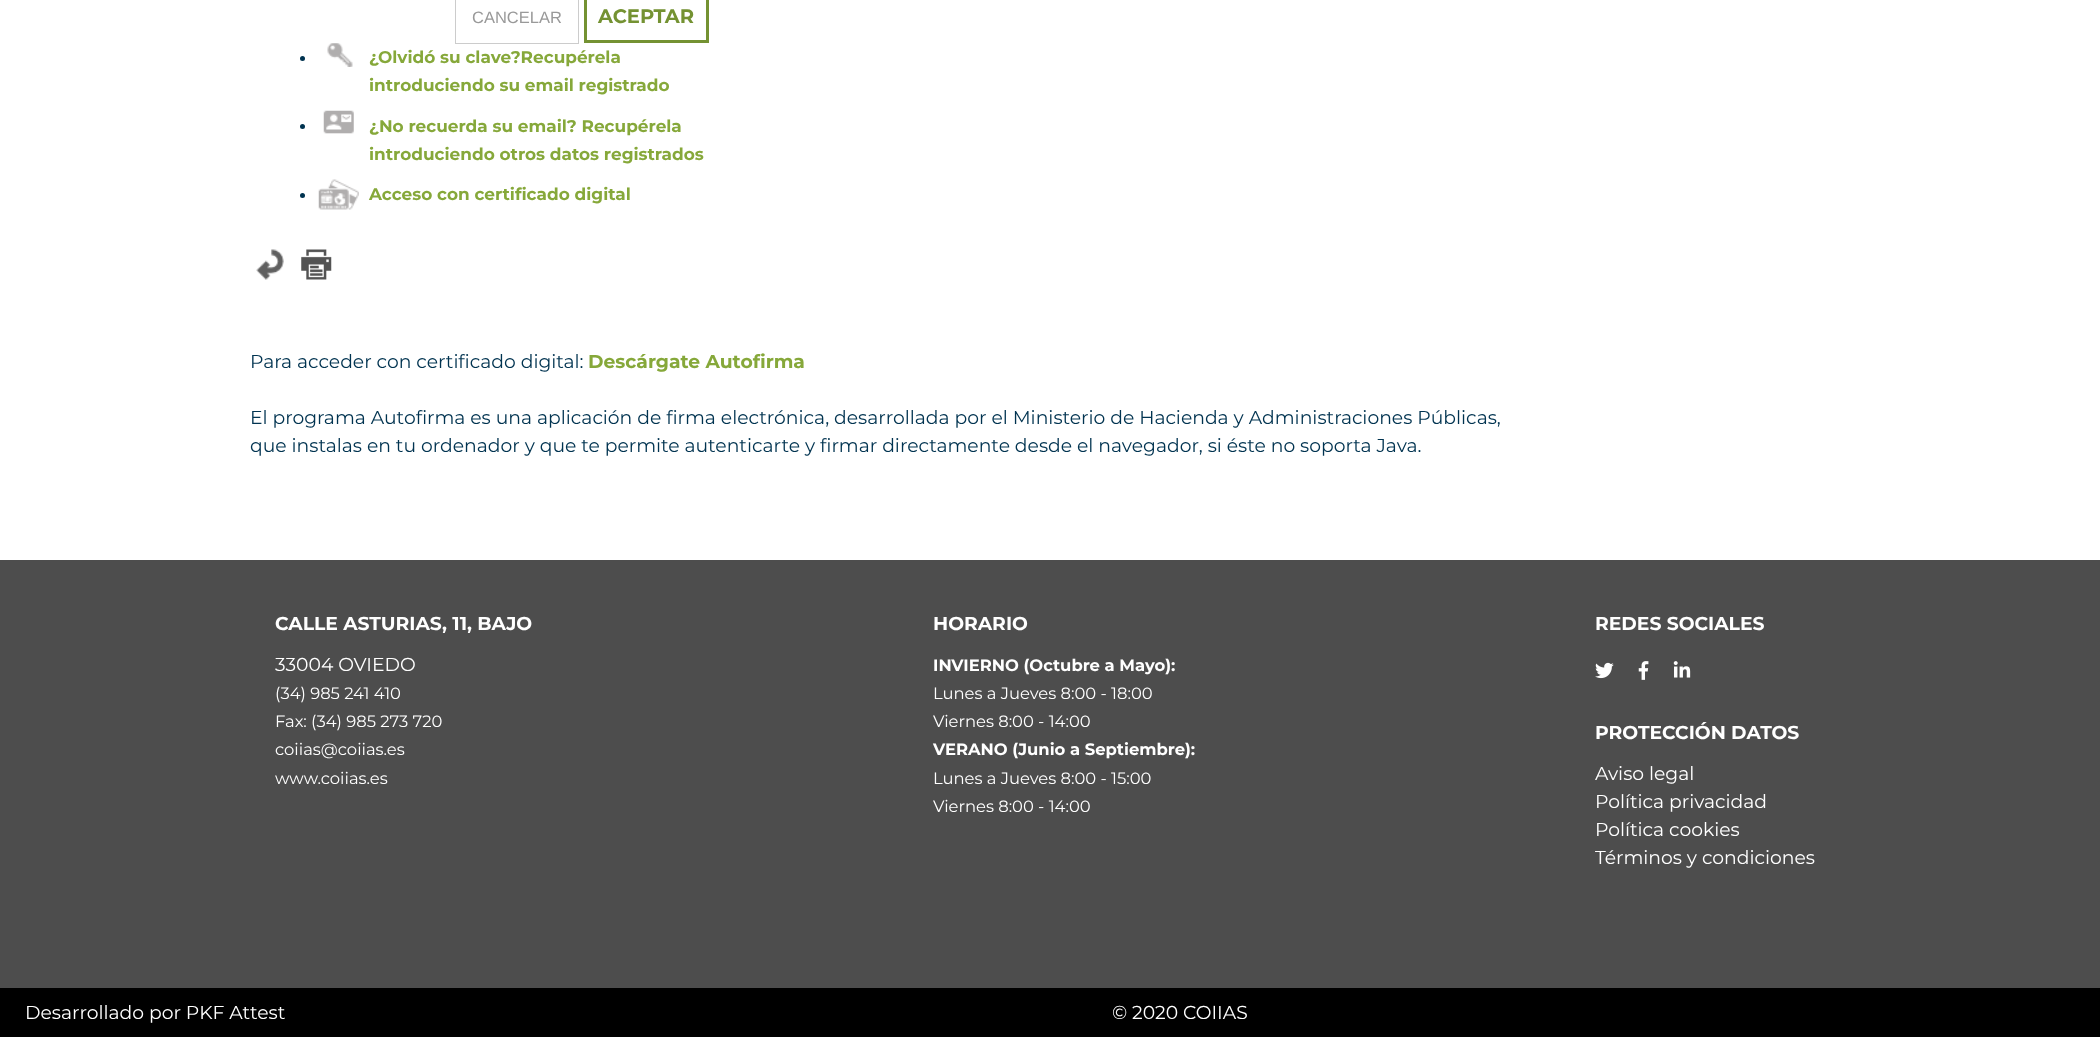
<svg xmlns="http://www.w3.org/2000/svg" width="2100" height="1037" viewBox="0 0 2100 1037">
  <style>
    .t1 { font: 16.5px Liberation Sans; fill: #999; }
    .t2 { font: bold 19.5px Montserrat; fill: #749232; }
    .t3 { font: bold 16.9px Montserrat; fill: #86a83a; }
    .t4 { font: 18.75px Montserrat; fill: #003350; }
    .t5 { font: bold 18.75px Montserrat; fill: #86a83a; }
    .t6 { font: bold 18.75px Montserrat; fill: #fff; }
    .t7 { font: 18.75px Montserrat; fill: #fff; }
    .t8 { font: 16.4px Montserrat; fill: #fff; }
    .t9 { font: bold 16.4px Montserrat; fill: #fff; }
  </style>
  <rect width="100%" height="100%" fill="#fff"/>
  <rect x="455.5" y="-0.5" width="123" height="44" fill="none" stroke="#ccc"/>
  <text x="472" y="23" class="t1">CANCELAR</text>
  <rect x="585.5" y="-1.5" width="122" height="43" fill="none" stroke="#749232" stroke-width="3"/>
  <text x="598" y="23" class="t2">ACEPTAR</text>
  <image x="327" y="43" width="26" height="24" href="images/1.png"/>
  <circle cx="302.5" cy="58.5" r="2.5" fill="#003350"/>
  <text x="369" y="63" class="t3">¿Olvidó su clave?Recupérela</text>
  <text x="369" y="91" class="t3">introduciendo su email registrado</text>
  <image x="323" y="110" width="31" height="24" href="images/2.png"/>
  <circle cx="302.5" cy="126.5" r="2.5" fill="#003350"/>
  <text x="369" y="132" class="t3">¿No recuerda su email? Recupérela</text>
  <text x="369" y="160" class="t3">introduciendo otros datos registrados</text>
  <image x="318" y="179" width="41" height="31" href="images/3.png"/>
  <circle cx="302.5" cy="195.5" r="2.5" fill="#003350"/>
  <text x="369" y="200" class="t3">Acceso con certificado digital</text>
  <image x="256" y="249" width="28" height="31" href="images/4.png"/>
  <image x="301" y="249" width="31" height="31" href="images/5.png"/>
  <text x="250" y="368" class="t4">Para acceder con certificado digital:</text>
  <text x="588" y="368" class="t5">Descárgate Autofirma</text>
  <text x="250" y="424" class="t4">El programa Autofirma es una aplicación de firma electrónica, desarrollada por el Ministerio de Hacienda y Administraciones Públicas,</text>
  <text x="250" y="452" class="t4">que instalas en tu ordenador y que te permite autenticarte y firmar directamente desde el navegador, si éste no soporta Java.</text>
  <rect x="0" y="560" width="2100" height="428" fill="#4d4d4d"/>
  <text x="275" y="630" class="t6">CALLE ASTURIAS, 11, BAJO</text>
  <text x="275" y="671" class="t7">33004 OVIEDO</text>
  <text x="275" y="699" class="t8">(34) 985 241 410</text>
  <text x="275" y="727" class="t8">Fax: (34) 985 273 720</text>
  <text x="275" y="755" class="t8">coiias@coiias.es</text>
  <text x="275" y="784" class="t8">www.coiias.es</text>
  <text x="933" y="630" class="t6">HORARIO</text>
  <text x="933" y="671" class="t9">INVIERNO (Octubre a Mayo):</text>
  <text x="933" y="699" class="t8">Lunes a Jueves 8:00 - 18:00</text>
  <text x="933" y="727" class="t8">Viernes 8:00 - 14:00</text>
  <text x="933" y="755" class="t9">VERANO (Junio a Septiembre):</text>
  <text x="933" y="784" class="t8">Lunes a Jueves 8:00 - 15:00</text>
  <text x="933" y="812" class="t8">Viernes 8:00 - 14:00</text>
  <text x="1595" y="630" class="t6">REDES SOCIALES</text>
  <image x="1595" y="662" width="19" height="17" href="images/6.png"/>
  <image x="1638" y="661" width="11" height="19" href="images/7.png"/>
  <image x="1673" y="661" width="18" height="17" href="images/8.png"/>
  <text x="1595" y="739" class="t6">PROTECCIÓN DATOS</text>
  <text x="1595" y="780" class="t7">Aviso legal</text>
  <text x="1595" y="808" class="t7">Política privacidad</text>
  <text x="1595" y="836" class="t7">Política cookies</text>
  <text x="1595" y="864" class="t7">Términos y condiciones</text>
  <rect x="0" y="988" width="2100" height="49" fill="#000"/>
  <text x="25" y="1019" class="t7">Desarrollado por PKF Attest</text>
  <text x="1112" y="1019" class="t7">© 2020 COIIAS</text>
</svg>
